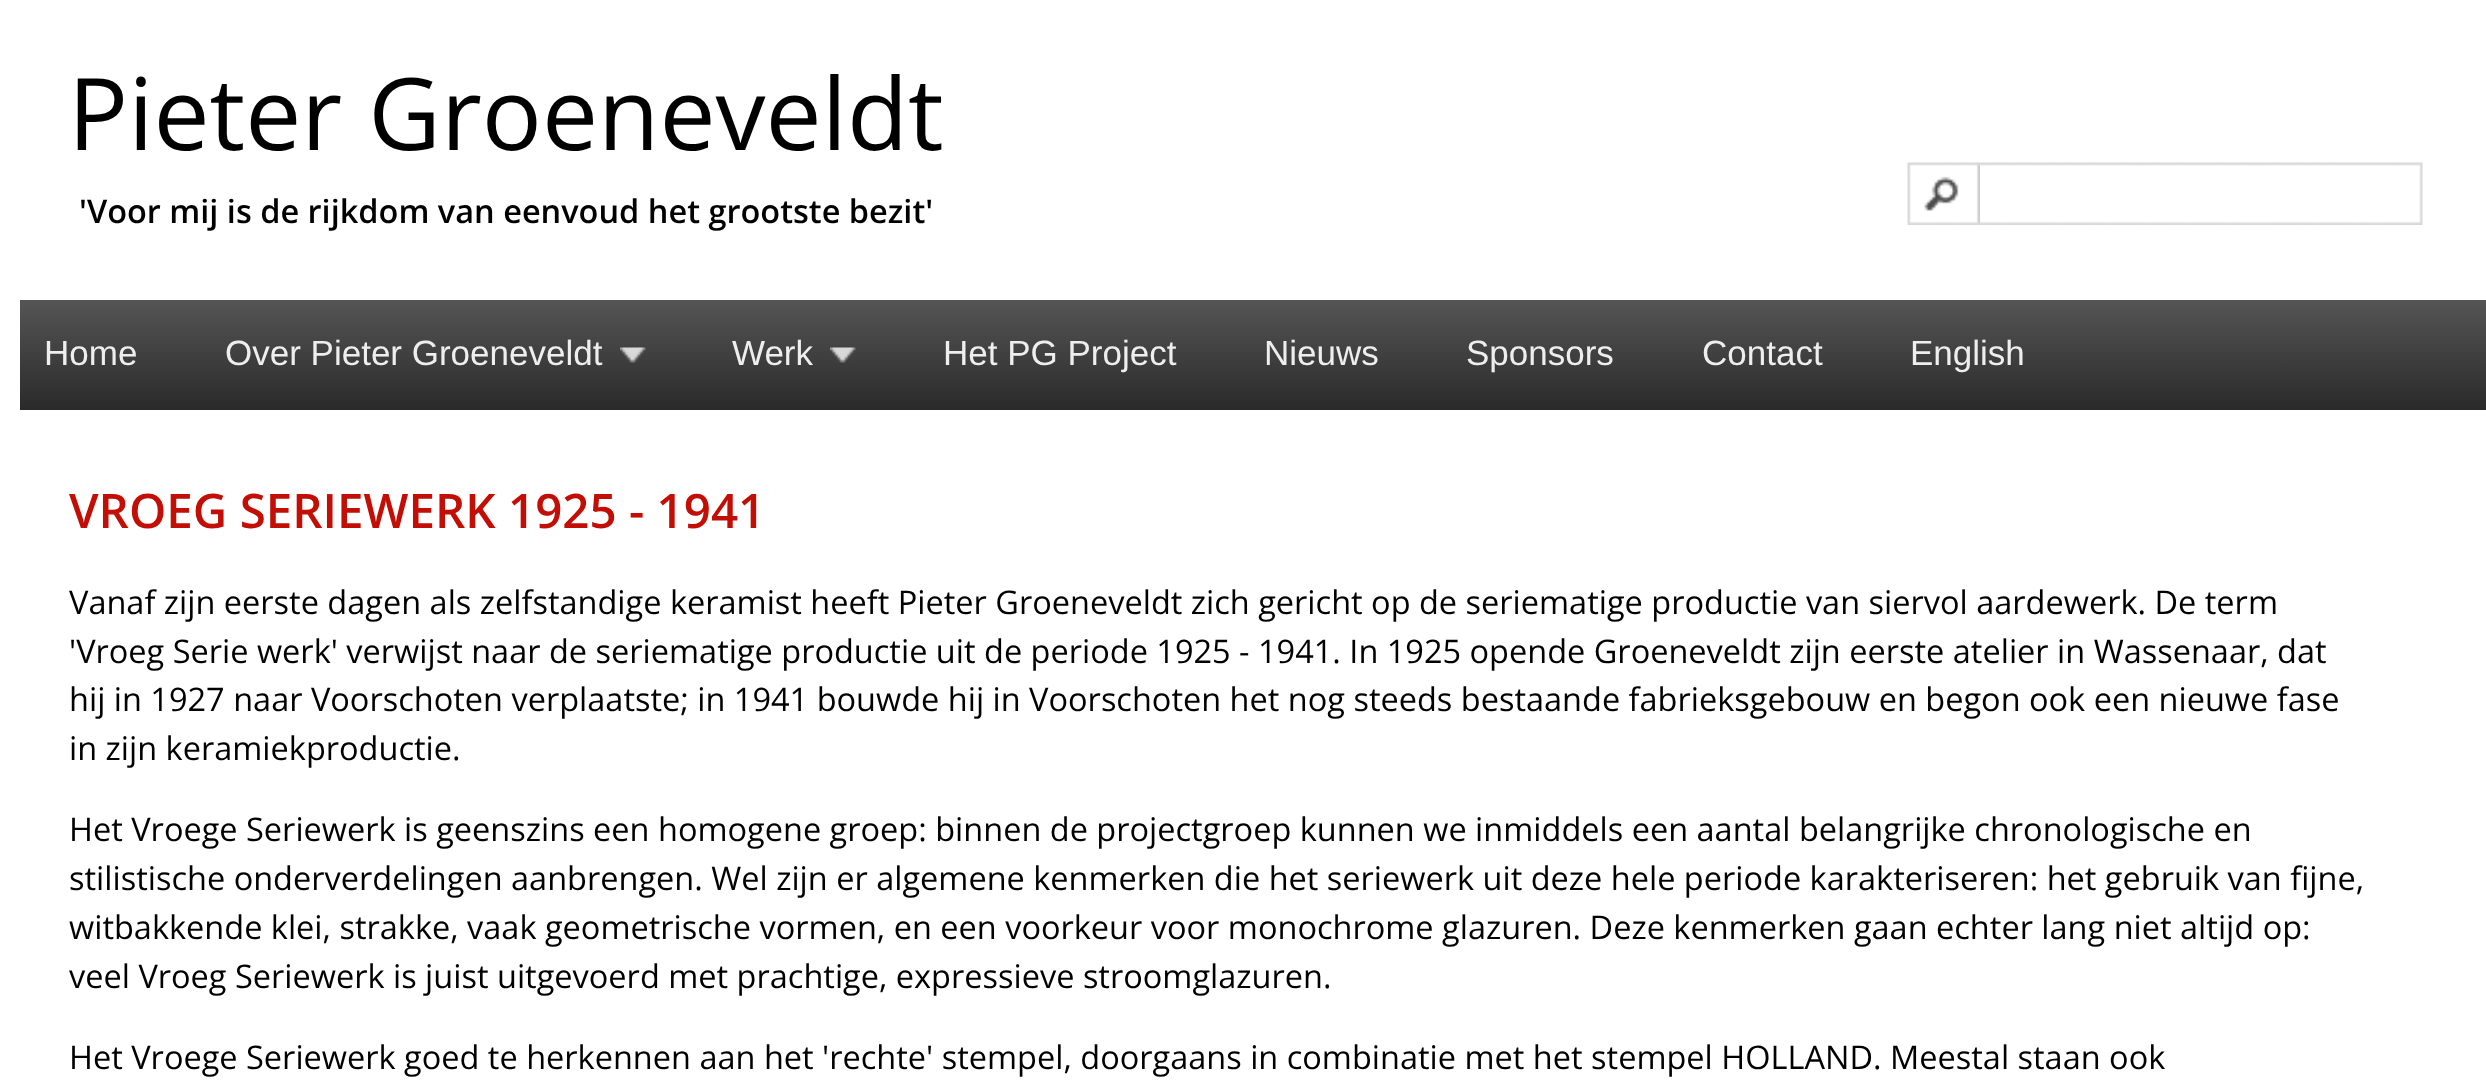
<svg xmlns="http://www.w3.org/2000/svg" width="2486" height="1091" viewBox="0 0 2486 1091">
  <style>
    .t1 { font: 100px Open Sans; fill: #000; }
    .t2 { font: 600 32.5px Open Sans; fill: #000; }
    .t3 { font: 35px Liberation Sans; fill: #eee; }
    .t4 { font: 600 47.5px Open Sans; fill: #c30e05; }
    .t5 { font: 32.5px Open Sans; fill: #000; }
  </style>
  <defs>
    <linearGradient id="g1" gradientUnits="userSpaceOnUse" x1="1264" y1="300" x2="1264" y2="410"><stop offset="0" stop-color="#555"/><stop offset="1" stop-color="#2a2a2a"/></linearGradient>
  </defs>
  <rect width="100%" height="100%" fill="#fff"/>
  <text x="68" y="150" class="t1">Pieter Groeneveldt</text>
  <text x="79" y="223" class="t2">'Voor mij is de rijkdom van eenvoud het grootste bezit'</text>
  <image x="1907" y="162" width="73" height="63" href="images/1.png"/>
  <image x="1980" y="162" width="443" height="63" href="images/2.png"/>
  <rect x="20" y="300" width="2466" height="110" fill="url(#g1)"/>
  <text x="44" y="365" class="t3">Home</text>
  <image x="620" y="347" width="26" height="16" href="images/3.png"/>
  <text x="225" y="365" class="t3">Over Pieter Groeneveldt</text>
  <image x="830" y="347" width="26" height="16" href="images/4.png"/>
  <text x="732" y="365" class="t3">Werk</text>
  <text x="943" y="365" class="t3">Het PG Project</text>
  <text x="1264" y="365" class="t3">Nieuws</text>
  <text x="1466" y="365" class="t3">Sponsors</text>
  <text x="1702" y="365" class="t3">Contact</text>
  <text x="1910" y="365" class="t3">English</text>
  <text x="69" y="528" class="t4">VROEG SERIEWERK 1925 - 1941</text>
  <text x="69" y="614" class="t5">Vanaf zijn eerste dagen als zelfstandige keramist heeft Pieter Groeneveldt zich gericht op de seriematige productie van siervol aardewerk. De term</text>
  <text x="69" y="663" class="t5">'Vroeg Serie werk' verwijst naar de seriematige productie uit de periode 1925 - 1941. In 1925 opende Groeneveldt zijn eerste atelier in Wassenaar, dat</text>
  <text x="69" y="711" class="t5">hij in 1927 naar Voorschoten verplaatste; in 1941 bouwde hij in Voorschoten het nog steeds bestaande fabrieksgebouw en begon ook een nieuwe fase</text>
  <text x="69" y="760" class="t5">in zijn keramiekproductie.</text>
  <text x="69" y="841" class="t5">Het Vroege Seriewerk is geenszins een homogene groep: binnen de projectgroep kunnen we inmiddels een aantal belangrijke chronologische en</text>
  <text x="69" y="890" class="t5">stilistische onderverdelingen aanbrengen. Wel zijn er algemene kenmerken die het seriewerk uit deze hele periode karakteriseren: het gebruik van fijne,</text>
  <text x="69" y="939" class="t5">witbakkende klei, strakke, vaak geometrische vormen, en een voorkeur voor monochrome glazuren. Deze kenmerken gaan echter lang niet altijd op:</text>
  <text x="69" y="988" class="t5">veel Vroeg Seriewerk is juist uitgevoerd met prachtige, expressieve stroomglazuren.</text>
  <text x="69" y="1069" class="t5">Het Vroege Seriewerk goed te herkennen aan het 'rechte' stempel, doorgaans in combinatie met het stempel HOLLAND. Meestal staan ook</text>
</svg>
